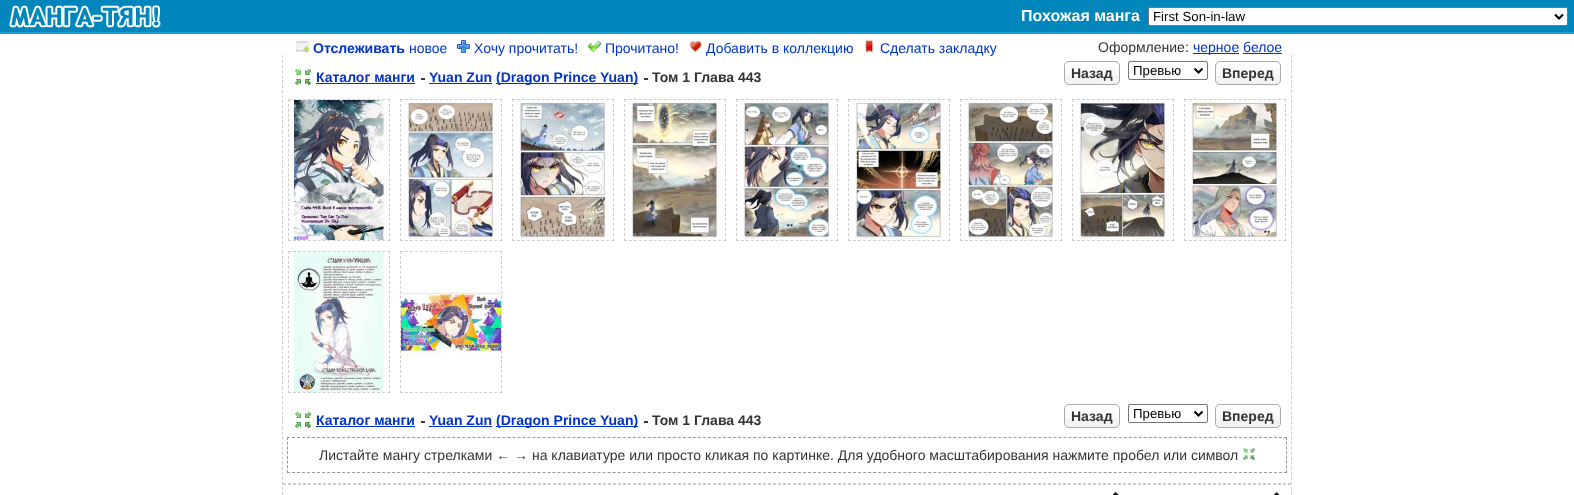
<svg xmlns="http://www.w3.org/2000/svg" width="1574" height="495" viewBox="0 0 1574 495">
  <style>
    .t1 { font: bold 16px Liberation Sans; fill: #fff; }
    .t2 { font: 13.25px Liberation Sans; fill: #000; }
    .t3 { font: bold 14px Liberation Sans; fill: #03c; }
    .t4 { font: 14px Liberation Sans; fill: #03c; }
    .t5 { font: 14px Liberation Sans; fill: #333; }
    .t6 { font: bold 14px Liberation Sans; fill: #333; }
  </style>
  <rect width="100%" height="100%" fill="#fff"/>
  <rect x="0" y="0" width="1574" height="32" fill="#0086bb"/>
  <rect x="0" y="32" width="1574" height="2" fill="#19a1d3"/>
  <image x="9" y="5" width="152" height="23" href="images/1.png"/>
  <text x="1021" y="21" class="t1">Похожая манга</text>
  <rect x="1148.5" y="7.5" width="419" height="18" rx="1.5" fill="#fff" stroke="#767676"/>
  <path d="M1555 14.5L1559 18.5L1563 14.5" fill="none" stroke="#000" stroke-width="2"/>
  <text x="1153" y="21" class="t2">First Son-in-law</text>
  <image x="296" y="41" width="13" height="12" href="images/2.png"/>
  <text x="313" y="53" class="t3">Отслеживать</text>
  <text x="409" y="53" class="t4">новое</text>
  <image x="457" y="40" width="13" height="13" href="images/3.png"/>
  <text x="474" y="53" class="t4">Хочу прочитать!</text>
  <image x="588" y="40" width="13" height="13" href="images/4.png"/>
  <text x="605" y="53" class="t4">Прочитано!</text>
  <image x="689" y="40" width="13" height="13" href="images/5.png"/>
  <text x="706" y="53" class="t4">Добавить в коллекцию</text>
  <image x="865" y="40" width="8" height="13" href="images/6.png"/>
  <text x="880" y="53" class="t4">Сделать закладку</text>
  <text x="1098" y="52" class="t5">Оформление:</text>
  <rect x="1193" y="53" width="46" height="1" fill="#03c"/>
  <text x="1193" y="52" class="t4">черное белое</text>
  <rect x="1243" y="53" width="39" height="1" fill="#03c"/>
  <path d="M1291.5 55V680" fill="none" stroke="#cfcfcf" stroke-dasharray="3 2.02"/>
  <path d="M282.5 55V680" fill="none" stroke="#cfcfcf" stroke-dasharray="3 2.02"/>
  <image x="295" y="69" width="16" height="16" href="images/7.png"/>
  <text x="316" y="82" class="t3">Каталог манги</text>
  <rect x="421" y="78" width="4" height="2" fill="#3b3a36"/>
  <rect x="316" y="83" width="99" height="1" fill="#03c"/>
  <text x="429" y="82" class="t3">Yuan Zun</text>
  <rect x="429" y="83" width="63" height="1" fill="#03c"/>
  <rect x="496" y="83" width="142" height="1" fill="#03c"/>
  <text x="496" y="82" class="t3">(Dragon Prince Yuan)</text>
  <rect x="644" y="78" width="4" height="2" fill="#3b3a36"/>
  <text x="652" y="82" class="t6">Том 1 Глава 443</text>
  <rect x="1064" y="61" width="56" height="24" rx="5" fill="#f3f3f3"/>
  <image x="1064" y="62" width="56" height="14" href="images/8.png"/>
  <rect x="1064.5" y="61.5" width="55" height="23" rx="4.5" fill="none" stroke="#aaa"/>
  <text x="1071" y="78" class="t6">Назад</text>
  <rect x="1128.5" y="61.5" width="79" height="18" rx="1.5" fill="none" stroke="#767676"/>
  <path d="M1194.5 68.5L1198.5 72.5L1202.5 68.5" fill="none" stroke="#000" stroke-width="2"/>
  <text x="1133" y="75" class="t2">Превью</text>
  <rect x="1215" y="61" width="66" height="24" rx="5" fill="#f3f3f3"/>
  <image x="1215" y="62" width="66" height="14" href="images/9.png"/>
  <rect x="1215.5" y="61.5" width="65" height="23" rx="4.5" fill="none" stroke="#aaa"/>
  <text x="1222" y="78" class="t6">Вперед</text>
  <path d="M288 99.5H390" fill="none" stroke="#cfcfcf" stroke-dasharray="3 1.95"/>
  <path d="M389.5 99V241" fill="none" stroke="#cfcfcf" stroke-dasharray="3 1.96"/>
  <path d="M288 240.5H390" fill="none" stroke="#cfcfcf" stroke-dasharray="3 1.95"/>
  <path d="M288.5 99V241" fill="none" stroke="#cfcfcf" stroke-dasharray="3 1.96"/>
  <path d="M400 99.5H502" fill="none" stroke="#cfcfcf" stroke-dasharray="3 1.95"/>
  <path d="M501.5 99V241" fill="none" stroke="#cfcfcf" stroke-dasharray="3 1.96"/>
  <path d="M400 240.5H502" fill="none" stroke="#cfcfcf" stroke-dasharray="3 1.95"/>
  <path d="M400.5 99V241" fill="none" stroke="#cfcfcf" stroke-dasharray="3 1.96"/>
  <path d="M512 99.5H614" fill="none" stroke="#cfcfcf" stroke-dasharray="3 1.95"/>
  <path d="M613.5 99V241" fill="none" stroke="#cfcfcf" stroke-dasharray="3 1.96"/>
  <path d="M512 240.5H614" fill="none" stroke="#cfcfcf" stroke-dasharray="3 1.95"/>
  <path d="M512.5 99V241" fill="none" stroke="#cfcfcf" stroke-dasharray="3 1.96"/>
  <path d="M624 99.5H726" fill="none" stroke="#cfcfcf" stroke-dasharray="3 1.95"/>
  <path d="M725.5 99V241" fill="none" stroke="#cfcfcf" stroke-dasharray="3 1.96"/>
  <path d="M624 240.5H726" fill="none" stroke="#cfcfcf" stroke-dasharray="3 1.95"/>
  <path d="M624.5 99V241" fill="none" stroke="#cfcfcf" stroke-dasharray="3 1.96"/>
  <path d="M736 99.5H838" fill="none" stroke="#cfcfcf" stroke-dasharray="3 1.95"/>
  <path d="M837.5 99V241" fill="none" stroke="#cfcfcf" stroke-dasharray="3 1.96"/>
  <path d="M736 240.5H838" fill="none" stroke="#cfcfcf" stroke-dasharray="3 1.95"/>
  <path d="M736.5 99V241" fill="none" stroke="#cfcfcf" stroke-dasharray="3 1.96"/>
  <path d="M848 99.5H950" fill="none" stroke="#cfcfcf" stroke-dasharray="3 1.95"/>
  <path d="M949.5 99V241" fill="none" stroke="#cfcfcf" stroke-dasharray="3 1.96"/>
  <path d="M848 240.5H950" fill="none" stroke="#cfcfcf" stroke-dasharray="3 1.95"/>
  <path d="M848.5 99V241" fill="none" stroke="#cfcfcf" stroke-dasharray="3 1.96"/>
  <path d="M960 99.5H1062" fill="none" stroke="#cfcfcf" stroke-dasharray="3 1.95"/>
  <path d="M1061.5 99V241" fill="none" stroke="#cfcfcf" stroke-dasharray="3 1.96"/>
  <path d="M960 240.5H1062" fill="none" stroke="#cfcfcf" stroke-dasharray="3 1.95"/>
  <path d="M960.5 99V241" fill="none" stroke="#cfcfcf" stroke-dasharray="3 1.96"/>
  <path d="M1072 99.5H1174" fill="none" stroke="#cfcfcf" stroke-dasharray="3 1.95"/>
  <path d="M1173.5 99V241" fill="none" stroke="#cfcfcf" stroke-dasharray="3 1.96"/>
  <path d="M1072 240.5H1174" fill="none" stroke="#cfcfcf" stroke-dasharray="3 1.95"/>
  <path d="M1072.5 99V241" fill="none" stroke="#cfcfcf" stroke-dasharray="3 1.96"/>
  <path d="M1184 99.5H1286" fill="none" stroke="#cfcfcf" stroke-dasharray="3 1.95"/>
  <image x="289" y="100" width="96" height="140" href="images/10.png"/>
  <image x="405" y="100" width="92" height="140" href="images/11.png"/>
  <image x="517" y="100" width="92" height="140" href="images/12.png"/>
  <image x="629" y="100" width="92" height="140" href="images/13.png"/>
  <image x="741" y="100" width="92" height="140" href="images/14.png"/>
  <image x="854" y="100" width="91" height="140" href="images/15.png"/>
  <image x="965" y="100" width="92" height="139" href="images/16.png"/>
  <image x="1077" y="100" width="92" height="140" href="images/17.png"/>
  <path d="M1285.5 99V241" fill="none" stroke="#cfcfcf" stroke-dasharray="3 1.96"/>
  <path d="M1184 240.5H1286" fill="none" stroke="#cfcfcf" stroke-dasharray="3 1.95"/>
  <path d="M1184.5 99V241" fill="none" stroke="#cfcfcf" stroke-dasharray="3 1.96"/>
  <image x="1189" y="100" width="92" height="140" href="images/18.png"/>
  <path d="M288 251.5H390" fill="none" stroke="#cfcfcf" stroke-dasharray="3 1.95"/>
  <path d="M389.5 251V393" fill="none" stroke="#cfcfcf" stroke-dasharray="3 1.96"/>
  <path d="M288 392.5H390" fill="none" stroke="#cfcfcf" stroke-dasharray="3 1.95"/>
  <path d="M288.5 251V393" fill="none" stroke="#cfcfcf" stroke-dasharray="3 1.96"/>
  <path d="M400 251.5H502" fill="none" stroke="#cfcfcf" stroke-dasharray="3 1.95"/>
  <image x="292" y="252" width="93" height="140" href="images/19.png"/>
  <path d="M501.5 251V393" fill="none" stroke="#cfcfcf" stroke-dasharray="3 1.96"/>
  <path d="M400 392.5H502" fill="none" stroke="#cfcfcf" stroke-dasharray="3 1.95"/>
  <path d="M400.5 251V393" fill="none" stroke="#cfcfcf" stroke-dasharray="3 1.96"/>
  <image x="401" y="292" width="100" height="64" href="images/20.png"/>
  <image x="295" y="412" width="16" height="16" href="images/7.png"/>
  <text x="316" y="425" class="t3">Каталог манги</text>
  <rect x="421" y="421" width="4" height="2" fill="#3b3a36"/>
  <rect x="316" y="426" width="99" height="1" fill="#03c"/>
  <text x="429" y="425" class="t3">Yuan Zun</text>
  <rect x="429" y="426" width="63" height="1" fill="#03c"/>
  <rect x="496" y="426" width="142" height="1" fill="#03c"/>
  <text x="496" y="425" class="t3">(Dragon Prince Yuan)</text>
  <rect x="644" y="421" width="4" height="2" fill="#3b3a36"/>
  <text x="652" y="425" class="t6">Том 1 Глава 443</text>
  <rect x="1064" y="404" width="56" height="24" rx="5" fill="#f3f3f3"/>
  <image x="1064" y="405" width="56" height="14" href="images/8.png"/>
  <rect x="1064.5" y="404.5" width="55" height="23" rx="4.5" fill="none" stroke="#aaa"/>
  <text x="1071" y="421" class="t6">Назад</text>
  <rect x="1128.5" y="404.5" width="79" height="18" rx="1.5" fill="none" stroke="#767676"/>
  <path d="M1194.5 411.5L1198.5 415.5L1202.5 411.5" fill="none" stroke="#000" stroke-width="2"/>
  <text x="1133" y="418" class="t2">Превью</text>
  <rect x="1215" y="404" width="66" height="24" rx="5" fill="#f3f3f3"/>
  <image x="1215" y="405" width="66" height="14" href="images/9.png"/>
  <rect x="1215.5" y="404.5" width="65" height="23" rx="4.5" fill="none" stroke="#aaa"/>
  <text x="1222" y="421" class="t6">Вперед</text>
  <path d="M287 437.5H1287" fill="none" stroke="#999" stroke-dasharray="3 2.01"/>
  <path d="M1286.5 437V473" fill="none" stroke="#999" stroke-dasharray="3 1.71"/>
  <path d="M287 472.5H1287" fill="none" stroke="#999" stroke-dasharray="3 2.01"/>
  <path d="M287.5 437V473" fill="none" stroke="#999" stroke-dasharray="3 1.71"/>
  <text x="319" y="460" class="t5">Листайте мангу стрелками ← → на клавиатуре или просто кликая по картинке. Для удобного масштабирования нажмите пробел или символ</text>
  <image x="1243" y="448" width="12" height="12" href="images/21.png"/>
  <path d="M283 483.5H1291" fill="none" stroke="#ccc" stroke-dasharray="3 2"/>
  <rect x="1290" y="483" width="1" height="2" fill="#ccc"/>
  <path d="M283 484.5H1291" fill="none" stroke="#ccc" stroke-dasharray="3 2"/>
  <image x="1112" y="491" width="7" height="4" href="images/22.png"/>
  <image x="1273" y="492" width="7" height="3" href="images/23.png"/>
</svg>
